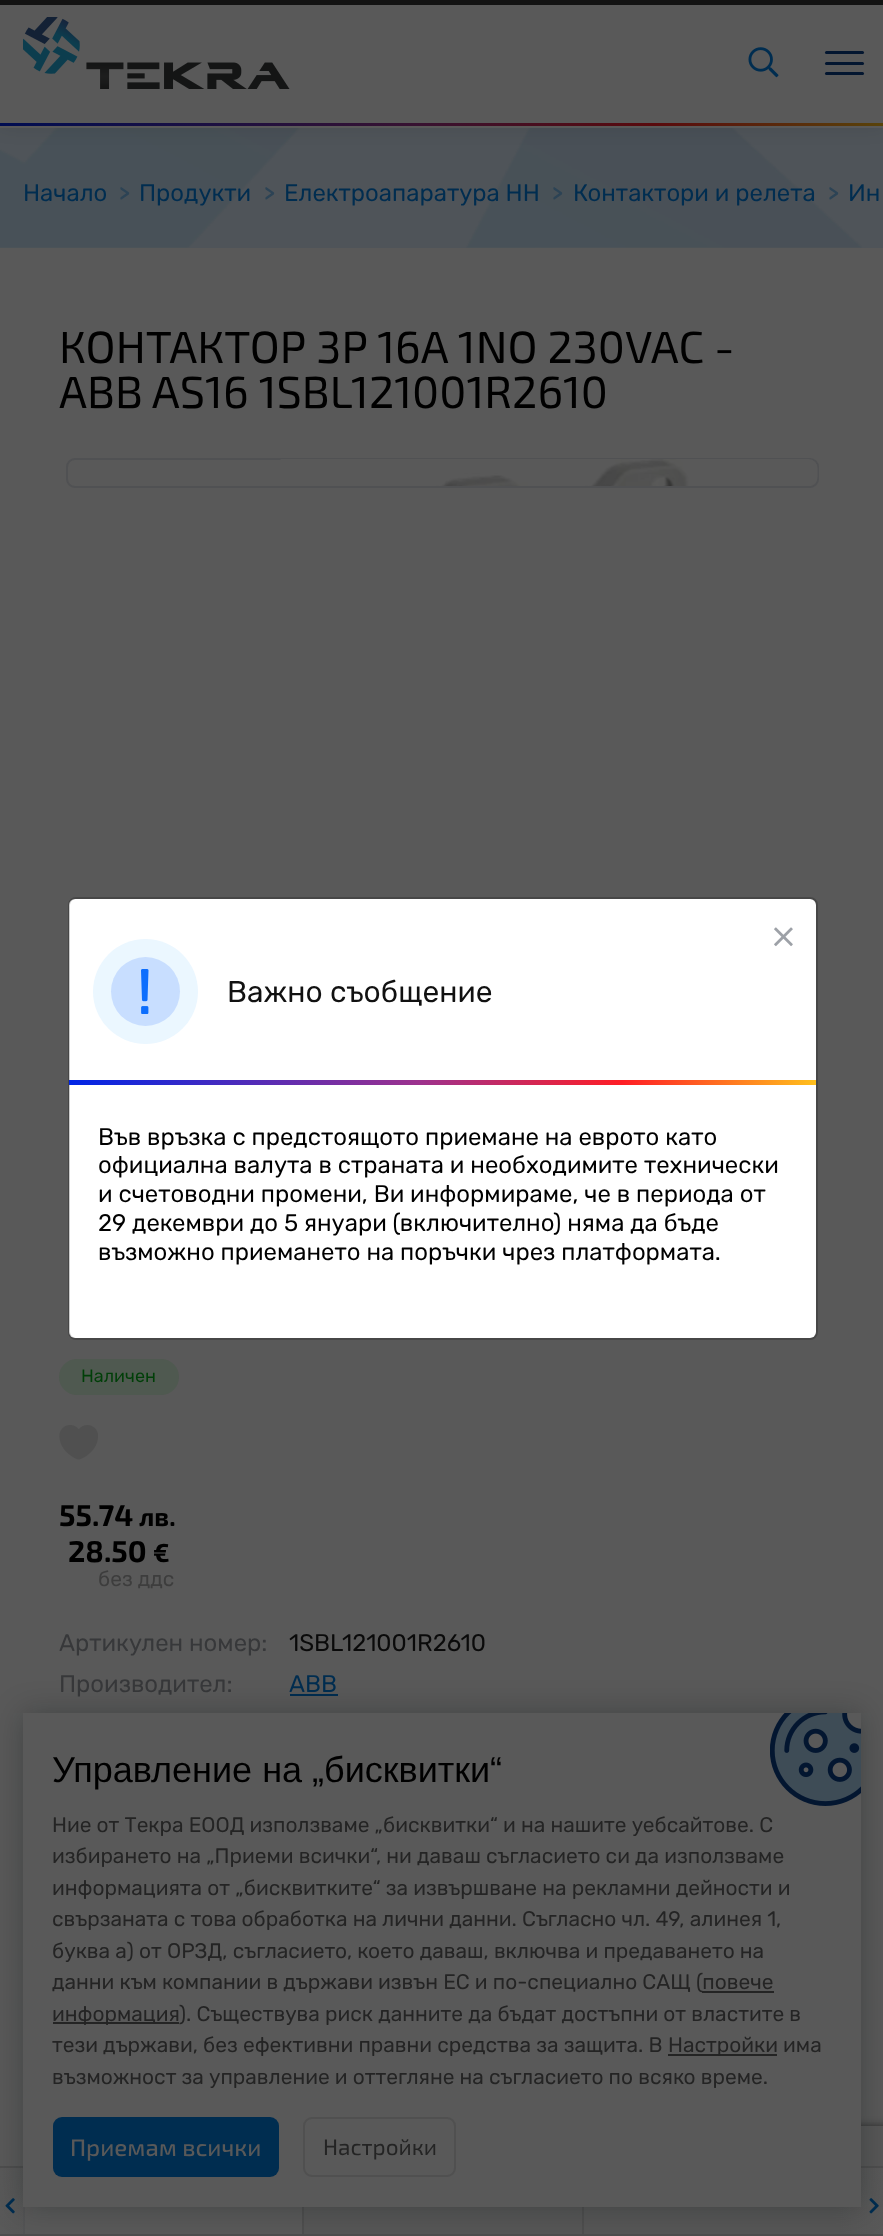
<svg xmlns="http://www.w3.org/2000/svg" width="883" height="2236" viewBox="0 0 883 2236">
  <style>
    .t1 { font: 24px Rubik; fill: #002d50; }
    .t2 { font: bold 21px Rubik; fill: #2c4355; }
    .t3 { font: 45px 'Exo 2'; fill: #000; }
    .t4 { font: 18px Rubik; fill: #003f08; }
    .t5 { font: bold 30px 'Exo 2'; fill: #000; }
    .t6 { font: bold 26px 'Exo 2'; fill: #000; }
    .t7 { font: 21px Rubik; fill: #3d3d3d; }
    .t8 { font: 24px Rubik; fill: #37383a; }
    .t9 { font: 24px Rubik; fill: #0a0a0a; }
    .t10 { font: 30px Rubik; fill: #111; }
    .t11 { font: 24px Rubik; fill: #000; }
    .t12 { font: 36px Liberation Sans; fill: #000; }
    .t13 { font: 21px Rubik; fill: #242424; }
    .t14 { font: 500 24px 'Exo 2'; fill: #595959; }
    .t15 { font: 22.5px 'Exo 2'; fill: #242424; }
  </style>
  <defs>
    <linearGradient id="g1" gradientUnits="userSpaceOnUse" x1="0" y1="2206" x2="45" y2="2206"><stop offset="0" stop-color="#595959"/><stop offset="1" stop-color="#595959" stop-opacity="0"/></linearGradient>
    <linearGradient id="g2" gradientUnits="userSpaceOnUse" x1="839" y1="2206" x2="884" y2="2206"><stop offset="0" stop-color="#565656"/><stop offset="1" stop-color="#595959"/></linearGradient>
    <linearGradient id="g3" gradientUnits="userSpaceOnUse" x1="69" y1="1082" x2="816" y2="1082"><stop offset="0" stop-color="#0025e6"/><stop offset="0.47" stop-color="#9d328d"/><stop offset="0.74" stop-color="#ff1d25"/><stop offset="1" stop-color="#ffc01d"/></linearGradient>
    <linearGradient id="g4" gradientUnits="userSpaceOnUse" x1="0" y1="124" x2="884" y2="124"><stop offset="0" stop-color="#000d51"/><stop offset="0.47" stop-color="#371231"/><stop offset="0.74" stop-color="#590a0d"/><stop offset="1" stop-color="#59430a"/></linearGradient>
  </defs>
  <rect width="100%" height="100%" fill="#4f5459"/>
  <image x="0" y="128" width="862" height="120" href="images/1.png"/>
  <text x="23" y="201" class="t1">Начало</text>
  <text x="119" y="201" class="t2">&gt;</text>
  <text x="139" y="201" class="t1">Продукти</text>
  <text x="264" y="201" class="t2">&gt;</text>
  <text x="284" y="201" class="t1">Електроапаратура НН</text>
  <text x="552" y="201" class="t2">&gt;</text>
  <text x="573" y="201" class="t1">Контактори и релета</text>
  <text x="828" y="201" class="t2">&gt;</text>
  <text x="848" y="201" class="t1">Ин</text>
  <rect x="0" y="248" width="883" height="1918" fill="#595959"/>
  <text x="59" y="363" class="t3">КОНТАКТОР 3P 16A 1NO 230VAC -</text>
  <text x="59" y="408" class="t3">ABB AS16 1SBL121001R2610</text>
  <rect x="67" y="459" width="751" height="28" rx="8" fill="none" stroke="#505153" stroke-width="2"/>
  <image x="280" y="459" width="538" height="27" href="images/2.png"/>
  <rect x="59" y="1359" width="120" height="36" rx="18" fill="#4f5950"/>
  <text x="81" y="1382" class="t4">Наличен</text>
  <image x="59" y="1425" width="39" height="35" href="images/3.png"/>
  <text x="59" y="1526" class="t5">55.74</text>
  <text x="139" y="1526" class="t6">лв.</text>
  <text x="68" y="1562" class="t5">28.50</text>
  <text x="153" y="1562" class="t6">€</text>
  <text x="98" y="1586" class="t7">без ддс</text>
  <text x="59" y="1651" class="t8">Артикулен номер:</text>
  <text x="289" y="1651" class="t9">1SBL121001R2610</text>
  <text x="59" y="1692" class="t8">Производител:</text>
  <text x="289" y="1692" class="t1">ABB</text>
  <rect x="290" y="1694" width="48" height="2" fill="#002d50"/>
  <rect x="779" y="2126" width="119" height="90" rx="3" fill="#2d2d2d" filter="blur(4px)"/>
  <rect x="0" y="2168" width="839" height="66" fill="#565656"/>
  <rect x="0" y="2166" width="883" height="2" fill="#4e4e4e"/>
  <rect x="0" y="2234" width="883" height="2" fill="#4e4e4e"/>
  <rect x="23" y="2207" width="2" height="27" fill="#4e4f51"/>
  <rect x="0" y="2168" width="25" height="66" fill="url(#g1)"/>
  <image x="5" y="2198" width="10" height="16" href="images/4.png"/>
  <rect x="25" y="2207" width="277" height="27" fill="#595959"/>
  <rect x="302" y="2207" width="2" height="27" fill="#4e4e4e"/>
  <rect x="582" y="2207" width="2" height="27" fill="#4e4e4e"/>
  <rect x="839" y="2168" width="44" height="66" fill="url(#g2)"/>
  <image x="869" y="2198" width="10" height="16" href="images/5.png"/>
  <rect x="69" y="899" width="747" height="439" rx="6" fill="#fff"/>
  <rect x="69" y="898" width="748" height="441" rx="7" fill="none" stroke="#00000033" stroke-width="2"/>
  <image x="774" y="927" width="19" height="20" href="images/6.png"/>
  <circle cx="145.5" cy="991.5" r="52.5" fill="#ebf7ff"/>
  <circle cx="145.5" cy="991.5" r="34.5" fill="#c8deff"/>
  <image x="141" y="969" width="8" height="45" href="images/7.png"/>
  <text x="227" y="1002" class="t10">Важно съобщение</text>
  <rect x="69" y="1080" width="747" height="5" fill="url(#g3)"/>
  <text x="98" y="1145" class="t11">Във връзка с предстоящото приемане на еврото като</text>
  <text x="98" y="1173" class="t11">официална валута в страната и необходимите технически</text>
  <text x="98" y="1202" class="t11">и счетоводни промени, Ви информираме, че в периода от</text>
  <text x="98" y="1231" class="t11">29 декември до 5 януари (включително) няма да бъде</text>
  <text x="98" y="1260" class="t11">възможно приемането на поръчки чрез платформата.</text>
  <rect x="0" y="0" width="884" height="125" fill="#0000001f" filter="blur(10px)"/>
  <rect x="0" y="123" width="883" height="3" fill="url(#g4)"/>
  <rect x="0" y="126" width="883" height="2" fill="#595959"/>
  <rect x="0" y="5" width="883" height="118" fill="#595959"/>
  <rect x="825" y="62" width="39" height="3" rx="1.5" fill="#031630"/>
  <rect x="825" y="51" width="39" height="3" rx="1.5" fill="#031630"/>
  <rect x="825" y="72" width="39" height="3" rx="1.5" fill="#031630"/>
  <image x="23" y="17" width="267" height="72" href="images/8.png"/>
  <rect x="0" y="0" width="883" height="5" fill="#131313"/>
  <image x="748" y="47" width="31" height="31" href="images/9.png"/>
  <image x="861" y="2126" width="22" height="40" href="images/11.png"/>
  <rect x="23" y="1713" width="838" height="494" fill="#05060945" filter="blur(15px)"/>
  <rect x="23" y="1713" width="838" height="494" fill="#595959"/>
  <text x="52" y="1782" class="t12">Управление на „бисквитки“</text>
  <image x="770" y="1713" width="91" height="93" href="images/10.png"/>
  <text x="52" y="1832" class="t13">Ние от Текра ЕООД използваме „бисквитки“ и на нашите уебсайтове. С</text>
  <text x="52" y="1863" class="t13">избирането на „Приеми всички“, ни даваш съгласието си да използваме</text>
  <text x="52" y="1895" class="t13">информацията от „бисквитките“ за извършване на рекламни дейности и</text>
  <text x="52" y="1926" class="t13">свързаната с това обработка на лични данни. Съгласно чл. 49, алинея 1,</text>
  <text x="52" y="1958" class="t13">буква а) от ОРЗД, съгласието, което даваш, включва и предаването на</text>
  <text x="52" y="1989" class="t13">данни към компании в държави извън ЕС и по-специално САЩ (повече</text>
  <rect x="53" y="2022" width="126" height="2" fill="#242424"/>
  <text x="52" y="2021" class="t13">информация</text>
  <rect x="702" y="1991" width="72" height="2" fill="#242424"/>
  <text x="179" y="2021" class="t13">). Съществува риск данните да бъдат достъпни от властите в</text>
  <text x="52" y="2052" class="t13">тези държави, без ефективни правни средства за защита. В</text>
  <rect x="668" y="2054" width="109" height="2" fill="#242424"/>
  <text x="668" y="2052" class="t13">Настройки има</text>
  <text x="52" y="2084" class="t13">възможност за управление и оттегляне на съгласието по всяко време.</text>
  <rect x="53" y="2117" width="226" height="60" rx="9" fill="#002d50"/>
  <text x="70" y="2156" class="t14">Приемам всички</text>
  <rect x="304" y="2118" width="151" height="58" rx="8" fill="none" stroke="#505050" stroke-width="2"/>
  <text x="323" y="2155" class="t15">Настройки</text>
</svg>
